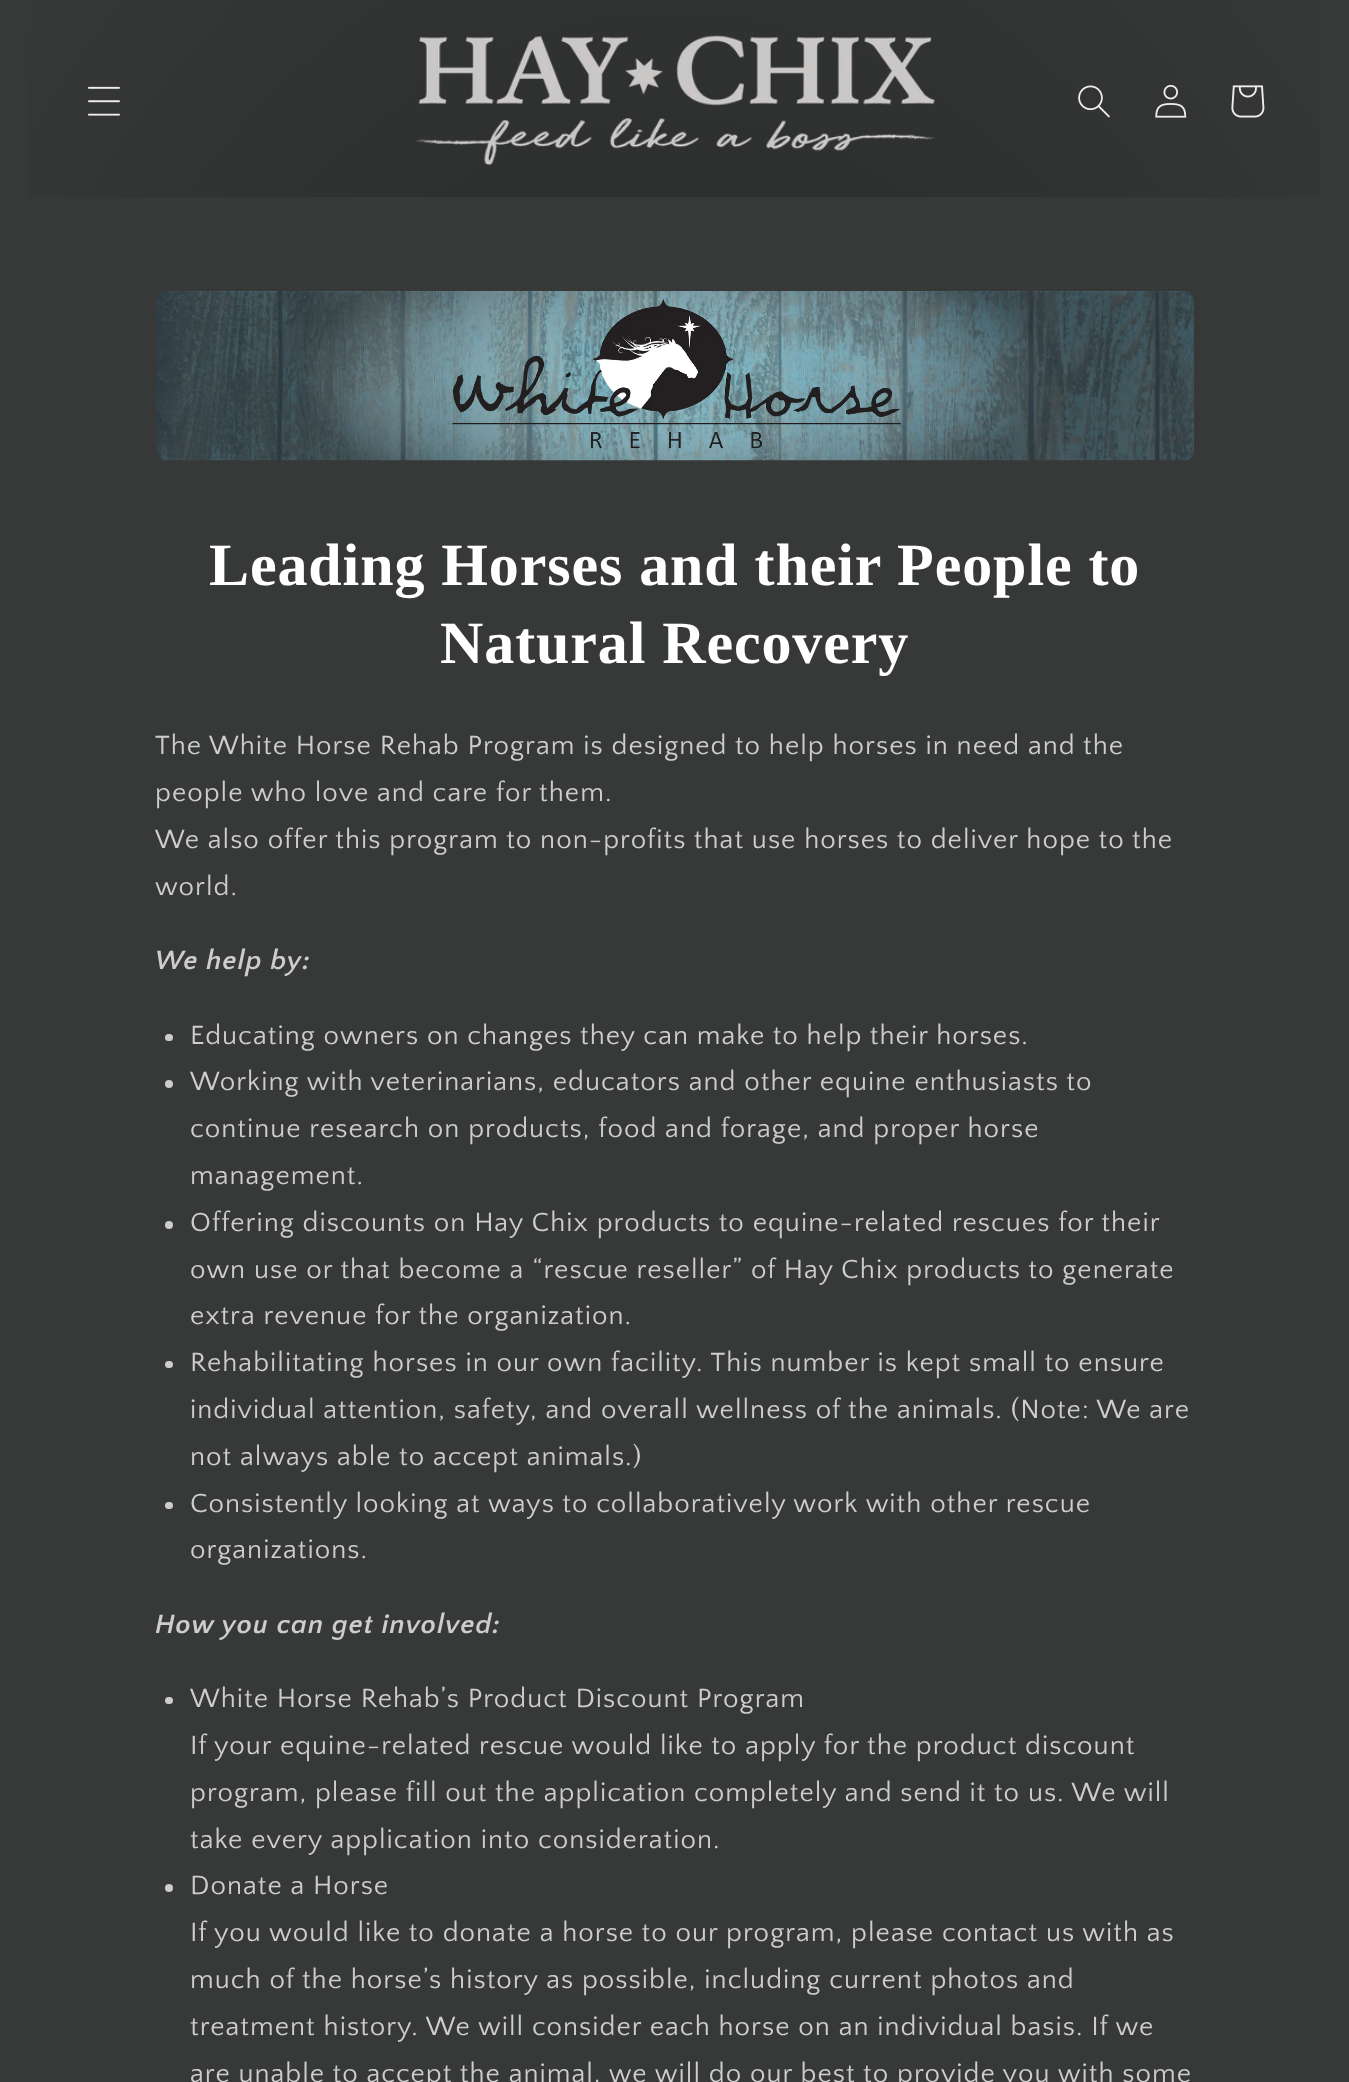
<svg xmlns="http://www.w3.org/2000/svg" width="1349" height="2082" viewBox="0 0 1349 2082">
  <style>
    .t1 { font: bold 60px Liberation Serif; letter-spacing: 0.9px; fill: #fff; }
    .t2 { font: 27.6px Quattrocento Sans; letter-spacing: 1.03px; fill: #cdcdcd; }
    .t3 { font: italic bold 27.6px Quattrocento Sans; letter-spacing: 1.03px; fill: #cdcdcd; }
  </style>
  <defs>
    <radialGradient id="g1" gradientUnits="userSpaceOnUse" cx="0" cy="0" r="1" gradientTransform="matrix(955 0 0 1472 675 1041)"><stop offset="0.38" stop-color="#292a2a"/><stop offset="1" stop-color="#373838"/></radialGradient>
  </defs>
  <rect width="100%" height="100%" fill="#373838"/>
  <rect x="29" y="0" width="1292" height="197" fill="url(#g1)"/>
  <image x="88" y="86" width="32" height="30" href="images/1.png"/>
  <image x="416" y="35" width="520" height="131" href="images/2.png"/>
  <image x="1078" y="85" width="32" height="33" href="images/3.png"/>
  <image x="1155" y="84" width="32" height="34" href="images/4.png"/>
  <image x="1231" y="85" width="34" height="33" href="images/5.png"/>
  <image x="156" y="291" width="1038" height="170" href="images/6.png"/>
  <text x="209" y="585" class="t1">Leading Horses and their People to</text>
  <text x="440" y="663" class="t1">Natural Recovery</text>
  <text x="155" y="754" class="t2">The White Horse Rehab Program is designed to help horses in need and the</text>
  <text x="155" y="801" class="t2">people who love and care for them.</text>
  <text x="155" y="848" class="t2">We also offer this program to non-profits that use horses to deliver hope to the</text>
  <text x="155" y="895" class="t2">world.</text>
  <text x="155" y="969" class="t3">We help by:</text>
  <rect x="165" y="1034" width="8" height="7" rx="3.5" fill="#cdcdcd"/>
  <text x="190" y="1044" class="t2">Educating owners on changes they can make to help their horses.</text>
  <circle cx="169" cy="1084" r="4" fill="#cdcdcd"/>
  <text x="190" y="1090" class="t2">Working with veterinarians, educators and other equine enthusiasts to</text>
  <text x="190" y="1137" class="t2">continue research on products, food and forage, and proper horse</text>
  <text x="190" y="1184" class="t2">management.</text>
  <circle cx="169" cy="1225" r="4" fill="#cdcdcd"/>
  <text x="190" y="1231" class="t2">Offering discounts on Hay Chix products to equine-related rescues for their</text>
  <text x="190" y="1278" class="t2">own use or that become a “rescue reseller” of Hay Chix products to generate</text>
  <text x="190" y="1324" class="t2">extra revenue for the organization.</text>
  <rect x="165" y="1361" width="8" height="7" rx="3.5" fill="#cdcdcd"/>
  <text x="190" y="1371" class="t2">Rehabilitating horses in our own facility. This number is kept small to ensure</text>
  <text x="190" y="1418" class="t2">individual attention, safety, and overall wellness of the animals. (Note: We are</text>
  <text x="190" y="1465" class="t2">not always able to accept animals.)</text>
  <rect x="165" y="1502" width="8" height="7" rx="3.5" fill="#cdcdcd"/>
  <text x="190" y="1512" class="t2">Consistently looking at ways to collaboratively work with other rescue</text>
  <text x="190" y="1558" class="t2">organizations.</text>
  <text x="155" y="1633" class="t3">How you can get involved:</text>
  <rect x="165" y="1697" width="8" height="7" rx="3.5" fill="#cdcdcd"/>
  <text x="190" y="1707" class="t2">White Horse Rehab’s Product Discount Program</text>
  <text x="190" y="1754" class="t2">If your equine-related rescue would like to apply for the product discount</text>
  <text x="190" y="1801" class="t2">program, please fill out the application completely and send it to us. We will</text>
  <text x="190" y="1848" class="t2">take every application into consideration.</text>
  <circle cx="169" cy="1888" r="4" fill="#cdcdcd"/>
  <text x="190" y="1894" class="t2">Donate a Horse</text>
  <text x="190" y="1941" class="t2">If you would like to donate a horse to our program, please contact us with as</text>
  <text x="190" y="1988" class="t2">much of the horse’s history as possible, including current photos and</text>
  <text x="190" y="2035" class="t2">treatment history. We will consider each horse on an individual basis. If we</text>
  <text x="190" y="2082" class="t2">are unable to accept the animal, we will do our best to provide you with some</text>
</svg>
